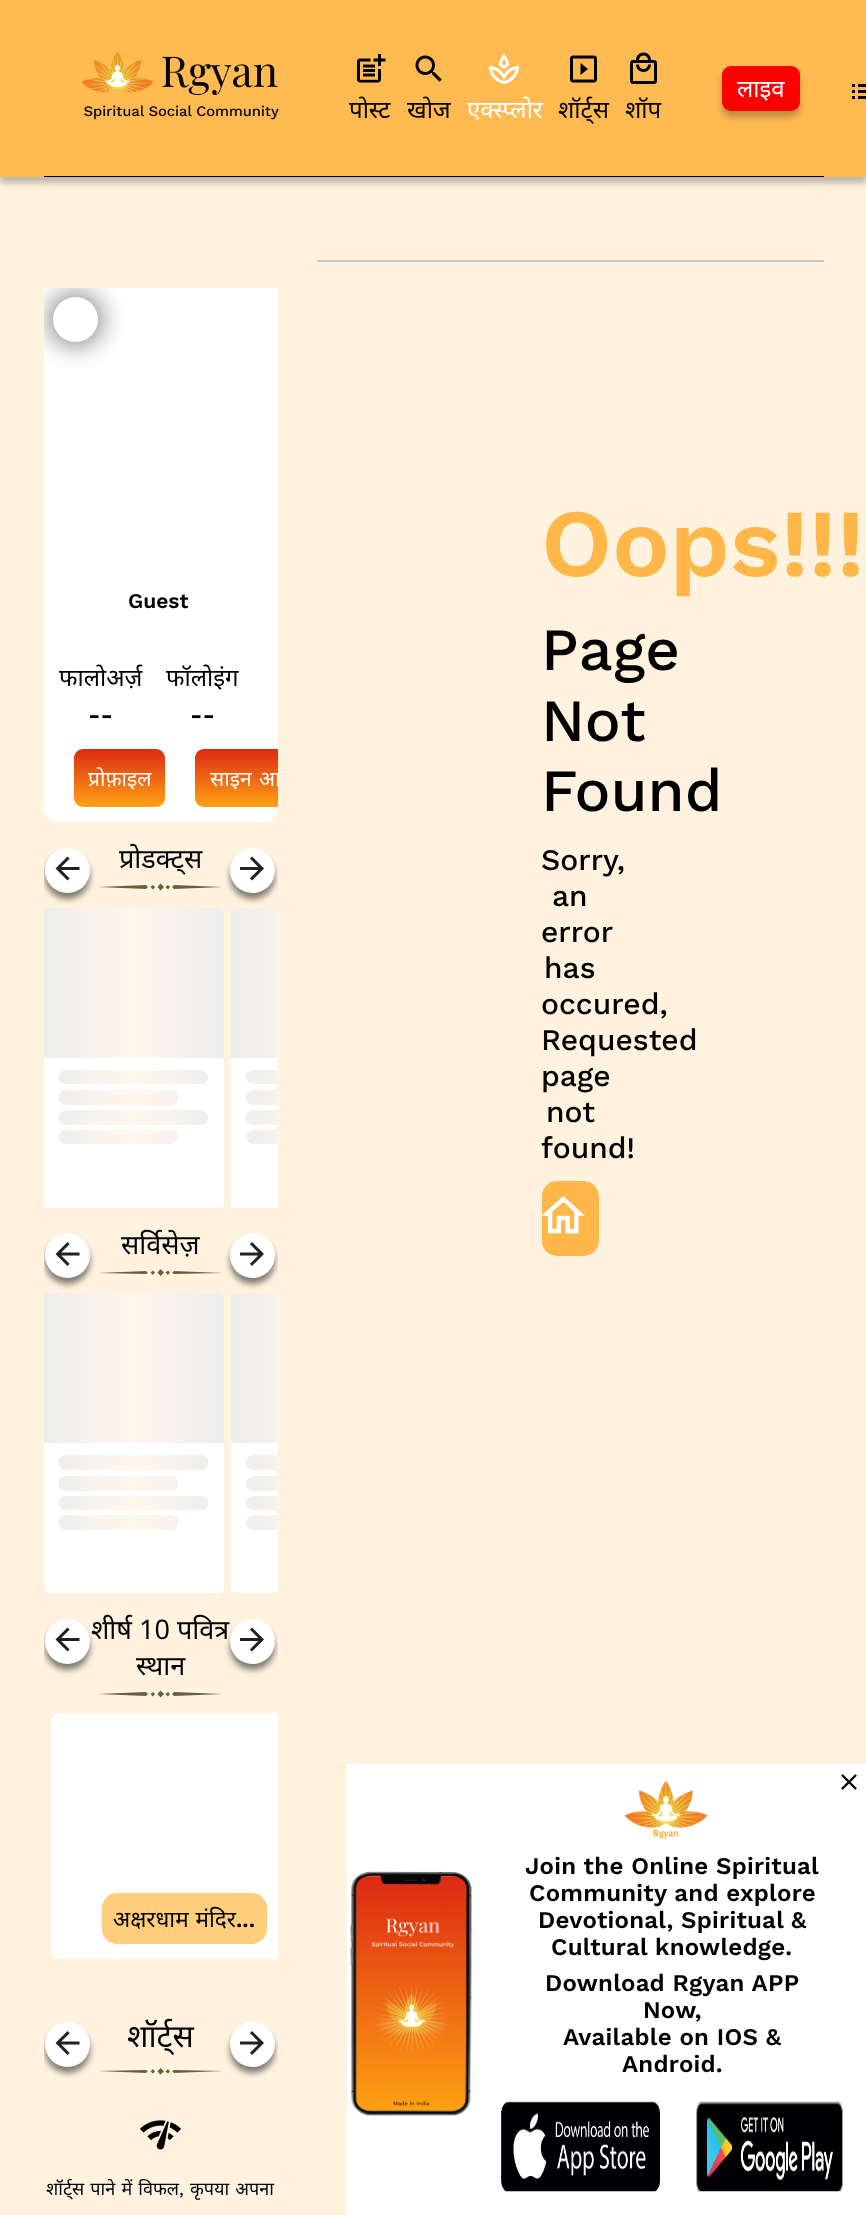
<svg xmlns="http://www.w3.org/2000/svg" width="866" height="2215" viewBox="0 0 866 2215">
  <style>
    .t1 { font: 24px Noto Sans; fill: #fff; }
    .t2 { font: 24px Noto Sans; fill: #000; }
    .t3 { font: 600 21px Work Sans; fill: #000; }
    .t4 { font: 600 24px Work Sans; fill: #000; }
    .t5 { font: 21px Noto Sans; fill: #fff; }
    .t6 { font: 27px Noto Sans; fill: #000; }
    .t7 { font: 22.5px Noto Sans; fill: #000; }
    .t8 { font: 600 22.5px Work Sans; fill: #000; }
    .t9 { font: 31.5px Noto Sans; fill: #000; }
    .t10 { font: 18px Noto Sans; fill: #000; }
    .t11 { font: 18px Work Sans; fill: #000; }
    .t12 { font: 600 96px Work Sans; fill: #ffb749; }
    .t13 { font: 500 60px Work Sans; fill: #000; }
    .t14 { font: 500 30px Work Sans; fill: #000; }
    .t15 { font: 600 24px Work Sans; letter-spacing: 0.25px; fill: #000; }
  </style>
  <defs>
    <linearGradient id="g1" gradientUnits="userSpaceOnUse" x1="722" y1="89" x2="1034" y2="88"><stop offset="0" stop-color="#f00"/><stop offset="0.33" stop-color="#f00"/><stop offset="0.5" stop-color="#ffa500"/><stop offset="0.67" stop-color="#ff0"/><stop offset="0.83" stop-color="#ffa500"/><stop offset="1" stop-color="#f00"/></linearGradient>
    <clipPath id="clip1"><path d="M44 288H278V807C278 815.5 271.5 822 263 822H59C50.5 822 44 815.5 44 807Z"/></clipPath>
    <linearGradient id="g2" gradientUnits="userSpaceOnUse" x1="119" y1="749" x2="119" y2="807"><stop offset="0" stop-color="#dd2a12"/><stop offset="1" stop-color="#ffa214"/></linearGradient>
    <linearGradient id="g3" gradientUnits="userSpaceOnUse" x1="241" y1="749" x2="241" y2="807"><stop offset="0" stop-color="#dd2a12"/><stop offset="1" stop-color="#ffa214"/></linearGradient>
    <clipPath id="clip2"><path d="M44 288H278V807C278 815.5 271.5 822 263 822H59C50.5 822 44 815.5 44 807Z"/></clipPath>
    <clipPath id="clip3"><rect x="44" y="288" width="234" height="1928"/></clipPath>
    <linearGradient id="g4" gradientUnits="userSpaceOnUse" x1="44" y1="908" x2="224" y2="908"><stop offset="0" stop-color="#ededed"/><stop offset="0.5" stop-color="#fef7ec"/><stop offset="1" stop-color="#ededed"/></linearGradient>
    <clipPath id="clip4"><rect x="231" y="908" width="47" height="300"/></clipPath>
    <linearGradient id="g5" gradientUnits="userSpaceOnUse" x1="231" y1="908" x2="411" y2="908"><stop offset="0" stop-color="#ededed"/><stop offset="0.5" stop-color="#fef7ec"/><stop offset="1" stop-color="#ededed"/></linearGradient>
    <linearGradient id="g6" gradientUnits="userSpaceOnUse" x1="44" y1="1293" x2="224" y2="1293"><stop offset="0" stop-color="#ededed"/><stop offset="0.5" stop-color="#fef7ec"/><stop offset="1" stop-color="#ededed"/></linearGradient>
    <clipPath id="clip5"><rect x="231" y="1293" width="47" height="300"/></clipPath>
    <linearGradient id="g7" gradientUnits="userSpaceOnUse" x1="231" y1="1293" x2="411" y2="1293"><stop offset="0" stop-color="#ededed"/><stop offset="0.5" stop-color="#fef7ec"/><stop offset="1" stop-color="#ededed"/></linearGradient>
    <clipPath id="clip6"><rect x="542" y="1181" width="57" height="75" rx="15"/></clipPath>
  </defs>
  <rect width="100%" height="100%" fill="#fff3e0"/>
  <rect x="0" y="6" width="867" height="177" fill="#00000040" filter="blur(3px)"/>
  <rect x="0" y="0" width="866" height="177" fill="#ffba51"/>
  <rect x="44" y="176" width="780" height="1" fill="#000"/>
  <image x="81" y="52" width="198" height="68" href="images/1.png"/>
  <rect x="722" y="72" width="78" height="45" rx="9" fill="#00000040" filter="blur(3px)"/>
  <rect x="722" y="66" width="78" height="45" rx="9" fill="url(#g1)"/>
  <text x="737" y="97" class="t1">लाइव</text>
  <image x="852" y="84" width="14" height="15" href="images/2.png"/>
  <image x="357" y="54" width="29" height="29" href="images/3.png"/>
  <text x="349" y="118" class="t2">पोस्ट</text>
  <image x="415" y="55" width="27" height="27" href="images/4.png"/>
  <text x="407" y="118" class="t2">खोज</text>
  <image x="489" y="54" width="30" height="30" href="images/5.png"/>
  <text x="467" y="118" class="t1">एक्स्प्लोर</text>
  <image x="570" y="55" width="27" height="28" href="images/6.png"/>
  <text x="558" y="118" class="t2">शॉर्ट्स</text>
  <image x="630" y="52" width="27" height="32" href="images/7.png"/>
  <text x="625" y="118" class="t2">शॉप</text>
  <path d="M44 288H278V807C278 815.5 271.5 822 263 822H59C50.5 822 44 815.5 44 807Z" fill="#fff"/>
  <g clip-path="url(#clip1)">
    <rect x="47" y="291" width="57" height="57" rx="28.5" fill="#00000066" filter="blur(11px)"/>
  </g>
  <circle cx="75.5" cy="319.5" r="22.5" fill="#fff"/>
  <rect x="44" y="576" width="234" height="246" rx="15" fill="#fff"/>
  <text x="128" y="608" class="t3">Guest</text>
  <text x="59" y="686" class="t2">फालोअर्ज़</text>
  <text x="88" y="723" class="t4">--</text>
  <text x="166" y="686" class="t2">फॉलोइंग</text>
  <text x="190" y="723" class="t4">--</text>
  <rect x="74" y="749" width="91" height="58" rx="9" fill="url(#g2)"/>
  <text x="88" y="786" class="t5">प्रोफ़ाइल</text>
  <path d="M204 749H278V807H204C199 807 195 803 195 798V758C195 753 199 749 204 749Z" fill="url(#g3)"/>
  <g clip-path="url(#clip2)">
    <text x="210" y="786" word-spacing="2" class="t5">साइन आ</text>
  </g>
  <g clip-path="url(#clip3)">
    <rect x="45" y="854" width="45" height="45" rx="22.5" fill="#00000080" filter="blur(3px)"/>
  </g>
  <circle cx="67.5" cy="870.5" r="22.5" fill="#fff"/>
  <image x="55" y="856" width="25" height="25" href="images/8.png"/>
  <text x="119" y="868" class="t6">प्रोडक्ट्स</text>
  <path d="M168 885L165.5 887L168 889.5L170 887ZM160.5 883.5L157.5 887L160.5 890.5L164 887Z" fill="#69603f"/>
  <path d="M174 885L172 887L174 889L223 887Z" fill="#69603f"/>
  <path d="M153 885L150.5 887L153 889.5L155 887ZM146 889L148 887L146 885L98 887Z" fill="#69603f"/>
  <g clip-path="url(#clip3)">
    <rect x="230" y="854" width="45" height="45" rx="22.5" fill="#00000080" filter="blur(3px)"/>
  </g>
  <circle cx="252.5" cy="870.5" r="22.5" fill="#fff"/>
  <image x="240" y="856" width="24" height="25" href="images/9.png"/>
  <rect x="44" y="908" width="180" height="300" rx="5" fill="#fff"/>
  <path d="M49 908H219C221 908 223 909 224 911V1058H44V913C44 910 46 908 49 908ZM66 1070C56 1070 56 1084 66 1084H201L205 1083C211 1079 208 1070 201 1070ZM66 1090C59 1090 56 1099 61 1103L64 1105L171 1106C181 1105 181 1090 171 1090ZM66 1110C56 1110 56 1125 66 1125H201L205 1124C211 1120 208 1110 201 1110ZM66 1130C56 1130 56 1144 66 1144H173L176 1142C181 1138 178 1130 171 1130Z" fill="url(#g4)" fill-rule="evenodd"/>
  <path d="M236 908H278V1208H236C233 1208 231 1206 231 1203V913C231 910 233 908 236 908Z" fill="#fff"/>
  <g clip-path="url(#clip4)">
    <path d="M236 908C233 908 231 910 231 913V1058H411V913C411 910 409 908 406 908ZM254 1070C246 1070 243 1079 249 1083L254 1084H388C398 1084 398 1070 388 1070ZM254 1090C247 1090 244 1099 248 1103L252 1105L358 1106C368 1105 368 1090 358 1090ZM254 1110C246 1110 243 1120 249 1124L254 1125H388C398 1125 398 1110 388 1110ZM254 1130C247 1130 244 1138 248 1142L252 1144H358C368 1144 368 1130 358 1130Z" fill="url(#g5)" fill-rule="evenodd"/>
  </g>
  <g clip-path="url(#clip3)">
    <rect x="45" y="1239" width="45" height="45" rx="22.5" fill="#00000080" filter="blur(3px)"/>
  </g>
  <circle cx="67.5" cy="1255.5" r="22.5" fill="#fff"/>
  <image x="55" y="1242" width="25" height="24" href="images/10.png"/>
  <text x="121" y="1254" class="t6">सर्विसेज़</text>
  <path d="M168 1270.5L165.5 1272.5L168 1275L170 1272.5ZM160.5 1269L157.5 1272.5L160.5 1276L164 1272.5Z" fill="#69603f"/>
  <path d="M174 1271L172 1273L174 1274L223 1273Z" fill="#69603f"/>
  <path d="M153 1270.5L150.5 1272.5L153 1275L155 1272.5ZM146 1274L148 1273L146 1271L98 1273Z" fill="#69603f"/>
  <g clip-path="url(#clip3)">
    <rect x="230" y="1239" width="45" height="45" rx="22.5" fill="#00000080" filter="blur(3px)"/>
  </g>
  <circle cx="252.5" cy="1255.5" r="22.5" fill="#fff"/>
  <image x="240" y="1242" width="24" height="24" href="images/11.png"/>
  <rect x="44" y="1293" width="180" height="300" rx="5" fill="#fff"/>
  <path d="M49 1293H219C221 1293 223 1294 224 1296V1443H44V1298C44 1295 46 1293 49 1293ZM66 1455C56 1455 56 1470 66 1470H201L205 1469C211 1465 208 1455 201 1455ZM66 1476C56 1476 56 1491 66 1491H173L176 1489C181 1484 178 1476 171 1476ZM66 1496C56 1496 56 1510 66 1510H201L205 1509C211 1505 208 1496 201 1496ZM66 1515C56 1515 56 1530 66 1530H173L176 1528C181 1523 178 1515 171 1515Z" fill="url(#g6)" fill-rule="evenodd"/>
  <path d="M236 1293H278V1593H236C233 1593 231 1591 231 1588V1298C231 1295 233 1293 236 1293Z" fill="#fff"/>
  <g clip-path="url(#clip5)">
    <path d="M236 1293H406C409 1293 411 1295 411 1298V1443H231V1298C231 1295 233 1293 236 1293ZM254 1455C246 1455 243 1465 249 1469L254 1470H388C398 1470 398 1455 388 1455ZM254 1476C247 1476 244 1484 248 1489L252 1491H358C368 1491 368 1476 358 1476ZM254 1496C246 1496 243 1505 249 1509L254 1510H388C398 1510 398 1496 388 1496ZM254 1515C247 1515 244 1523 248 1528L252 1530H358C368 1530 368 1515 358 1515Z" fill="url(#g7)" fill-rule="evenodd"/>
  </g>
  <g clip-path="url(#clip3)">
    <rect x="45" y="1625" width="45" height="45" rx="22.5" fill="#00000080" filter="blur(3px)"/>
  </g>
  <circle cx="67.5" cy="1641.5" r="22.5" fill="#fff"/>
  <image x="55" y="1627" width="25" height="25" href="images/8.png"/>
  <text x="91" y="1639" class="t6">शीर्ष 10 पवित्र</text>
  <text x="136" y="1675" class="t6">स्थान</text>
  <path d="M168 1692L165.5 1694L168 1696.5L170 1694ZM160.5 1690.5L157.5 1694L160.5 1697.5L164 1694Z" fill="#69603f"/>
  <path d="M174 1692L172 1694L174 1696L223 1694Z" fill="#69603f"/>
  <path d="M153 1692L150.5 1694L153 1696.5L155 1694ZM146 1696L148 1694L146 1692L98 1694Z" fill="#69603f"/>
  <g clip-path="url(#clip3)">
    <rect x="230" y="1625" width="45" height="45" rx="22.5" fill="#00000080" filter="blur(3px)"/>
  </g>
  <circle cx="252.5" cy="1641.5" r="22.5" fill="#fff"/>
  <image x="240" y="1627" width="24" height="25" href="images/9.png"/>
  <path d="M60 1713H278V1959H60C55 1959 51 1955 51 1950V1722C51 1717 55 1713 60 1713Z" fill="#fff"/>
  <rect x="102" y="1893" width="165" height="51" rx="15" fill="#ffce7d"/>
  <text x="113" y="1927" word-spacing="1" class="t7">अक्षरधाम मंदिर</text>
  <text x="236" y="1927" class="t8">...</text>
  <g clip-path="url(#clip3)">
    <rect x="45" y="2028" width="45" height="45" rx="22.5" fill="#00000080" filter="blur(3px)"/>
  </g>
  <circle cx="67.5" cy="2044.5" r="22.5" fill="#fff"/>
  <image x="55" y="2031" width="25" height="24" href="images/10.png"/>
  <text x="127" y="2047" class="t9">शॉर्ट्स</text>
  <path d="M168 2069L165.5 2071.5L168 2073.5L170 2071.5ZM160.5 2068L157.5 2071.5L160.5 2074.5L164 2071.5Z" fill="#69603f"/>
  <path d="M174 2070L172 2071L174 2073L223 2071Z" fill="#69603f"/>
  <path d="M153 2069L150.5 2071.5L153 2073.5L155 2071.5ZM146 2073L148 2071L146 2070L98 2071Z" fill="#69603f"/>
  <g clip-path="url(#clip3)">
    <rect x="230" y="2028" width="45" height="45" rx="22.5" fill="#00000080" filter="blur(3px)"/>
  </g>
  <circle cx="252.5" cy="2044.5" r="22.5" fill="#fff"/>
  <image x="240" y="2031" width="24" height="24" href="images/11.png"/>
  <image x="140" y="2120" width="41" height="30" href="images/12.png"/>
  <text x="46" y="2195" word-spacing="1.5" class="t10">शॉर्ट्स पाने में विफल</text>
  <text x="179" y="2195" class="t11">,</text>
  <text x="190" y="2195" word-spacing="1.5" class="t10">कृपया अपना</text>
  <rect x="317" y="260" width="507" height="2" fill="#c4c4c4"/>
  <text x="541" y="576" class="t12">Oops!!!</text>
  <text x="541" y="670" class="t13">Page</text>
  <text x="541" y="741" class="t13">Not</text>
  <text x="541" y="811" class="t13">Found</text>
  <text x="541" y="870" class="t14">Sorry,</text>
  <text x="552" y="906" class="t14">an</text>
  <text x="541" y="942" class="t14">error</text>
  <text x="544" y="978" class="t14">has</text>
  <text x="541" y="1014" class="t14">occured,</text>
  <text x="541" y="1050" class="t14">Requested</text>
  <text x="541" y="1086" class="t14">page</text>
  <text x="546" y="1122" class="t14">not</text>
  <text x="541" y="1158" class="t14">found!</text>
  <rect x="542" y="1181" width="57" height="75" rx="15" fill="#fff"/>
  <g clip-path="url(#clip6)">
    <rect x="530" y="1181" width="69" height="75" rx="15" fill="#ffb749"/>
  </g>
  <image x="542" y="1196" width="43" height="38" href="images/13.png"/>
  <rect x="347" y="1764" width="519" height="451" fill="#fff"/>
  <image x="350" y="1871" width="123" height="245" href="images/14.png"/>
  <image x="624" y="1781" width="84" height="58" href="images/15.png"/>
  <image x="841" y="1774" width="16" height="16" href="images/16.png"/>
  <text x="525" y="1874" class="t15">Join the Online Spiritual</text>
  <text x="529" y="1901" class="t15">Community and explore</text>
  <text x="538" y="1928" class="t15">Devotional, Spiritual &amp;</text>
  <text x="551" y="1955" class="t15">Cultural knowledge.</text>
  <text x="545" y="1991" class="t15">Download Rgyan APP</text>
  <text x="643" y="2018" class="t15">Now,</text>
  <text x="563" y="2045" class="t15">Available on IOS &amp;</text>
  <text x="622" y="2072" class="t15">Android.</text>
  <image x="501" y="2101" width="159" height="91" href="images/17.png"/>
  <image x="696" y="2101" width="147" height="91" href="images/18.png"/>
</svg>
